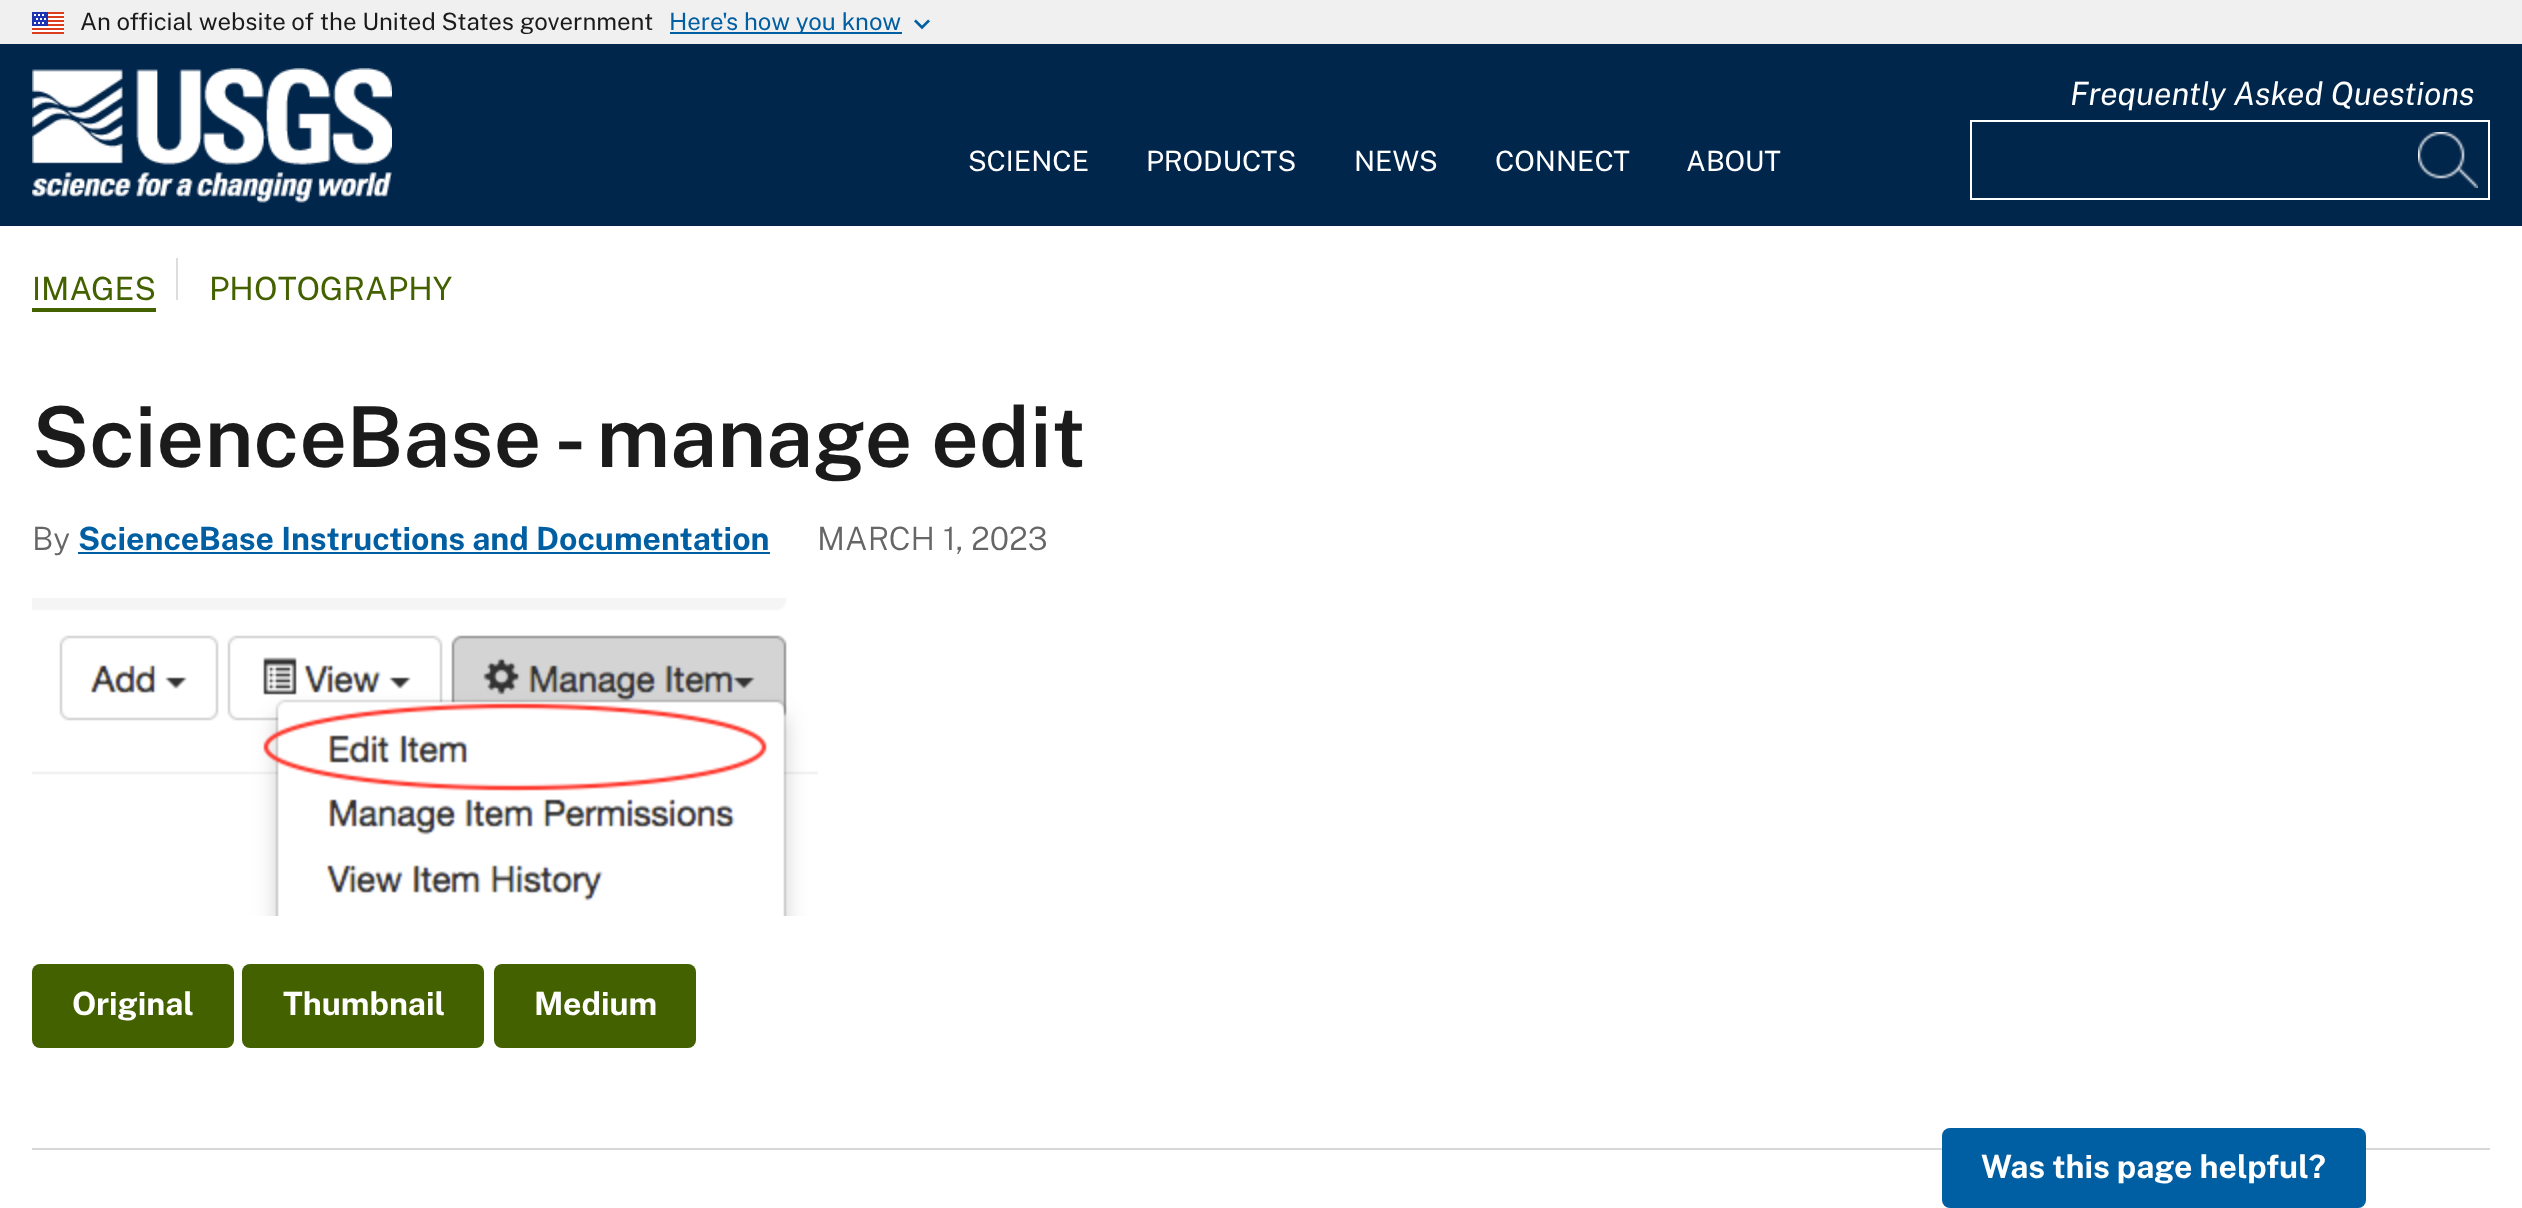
<svg xmlns="http://www.w3.org/2000/svg" width="2522" height="1208" viewBox="0 0 2522 1208">
  <style>
    .t1 { font: 24px Public Sans; fill: #1b1b1b; }
    .t2 { font: 24px Public Sans; fill: #005ea2; }
    .t3 { font: italic 32px Public Sans; fill: #fff; }
    .t4 { font: 28px Public Sans; fill: #fff; }
    .t5 { font: 32px Public Sans; fill: #446100; }
    .t6 { font: 600 84px Public Sans; fill: #1b1b1b; }
    .t7 { font: 300 32px Public Sans; fill: #666; }
    .t8 { font: bold 32px Public Sans; fill: #005ea2; }
    .t9 { font: bold 32px Public Sans; fill: #fff; }
  </style>
  <rect width="100%" height="100%" fill="#fff"/>
  <rect x="0" y="0" width="2522" height="44" fill="#f0f0f0"/>
  <image x="32" y="12" width="32" height="22" href="images/1.png"/>
  <text x="80" y="30" class="t1">An official website of the United States government</text>
  <rect x="670" y="32" width="232" height="2" fill="#005ea2"/>
  <text x="669" y="30" class="t2">Here's how you know</text>
  <image x="914" y="19" width="16" height="11" href="images/2.png"/>
  <rect x="0" y="44" width="2522" height="182" fill="#00264c"/>
  <image x="32" y="68" width="360" height="135" href="images/3.png"/>
  <text x="2070" y="105" class="t3">Frequently Asked Questions</text>
  <rect x="1971" y="121" width="518" height="78" fill="none" stroke="#fff" stroke-width="2"/>
  <image x="2418" y="132" width="60" height="56" href="images/4.png"/>
  <text x="968" y="171" class="t4">SCIENCE</text>
  <text x="1146" y="171" class="t4">PRODUCTS</text>
  <text x="1354" y="171" class="t4">NEWS</text>
  <text x="1495" y="171" class="t4">CONNECT</text>
  <text x="1686" y="171" class="t4">ABOUT</text>
  <text x="32" y="300" class="t5">IMAGES</text>
  <rect x="32" y="308" width="124" height="4" fill="#446100"/>
  <rect x="176" y="258" width="2" height="42" fill="#ddd"/>
  <text x="209" y="300" class="t5">PHOTOGRAPHY</text>
  <text x="32" y="467" class="t6">ScienceBase - manage edit</text>
  <text x="32" y="550" class="t7">By</text>
  <text x="78" y="550" class="t8">ScienceBase Instructions and Documentation</text>
  <rect x="78" y="552" width="692" height="2" fill="#005ea2"/>
  <text x="817" y="550" class="t7">MARCH 1, 2023</text>
  <rect x="32" y="1148" width="2458" height="2" fill="#d6d7d9"/>
  <image x="32" y="598" width="786" height="318" href="images/5.png"/>
  <rect x="32" y="964" width="202" height="84" rx="8" fill="#446100"/>
  <text x="72" y="1015" class="t9">Original</text>
  <rect x="242" y="964" width="242" height="84" rx="8" fill="#446100"/>
  <text x="283" y="1015" class="t9">Thumbnail</text>
  <rect x="494" y="964" width="202" height="84" rx="8" fill="#446100"/>
  <text x="534" y="1015" class="t9">Medium</text>
  <rect x="1942" y="1128" width="424" height="80" rx="8" fill="#005ea2"/>
  <text x="1981" y="1178" class="t9">Was this page helpful?</text>
</svg>
